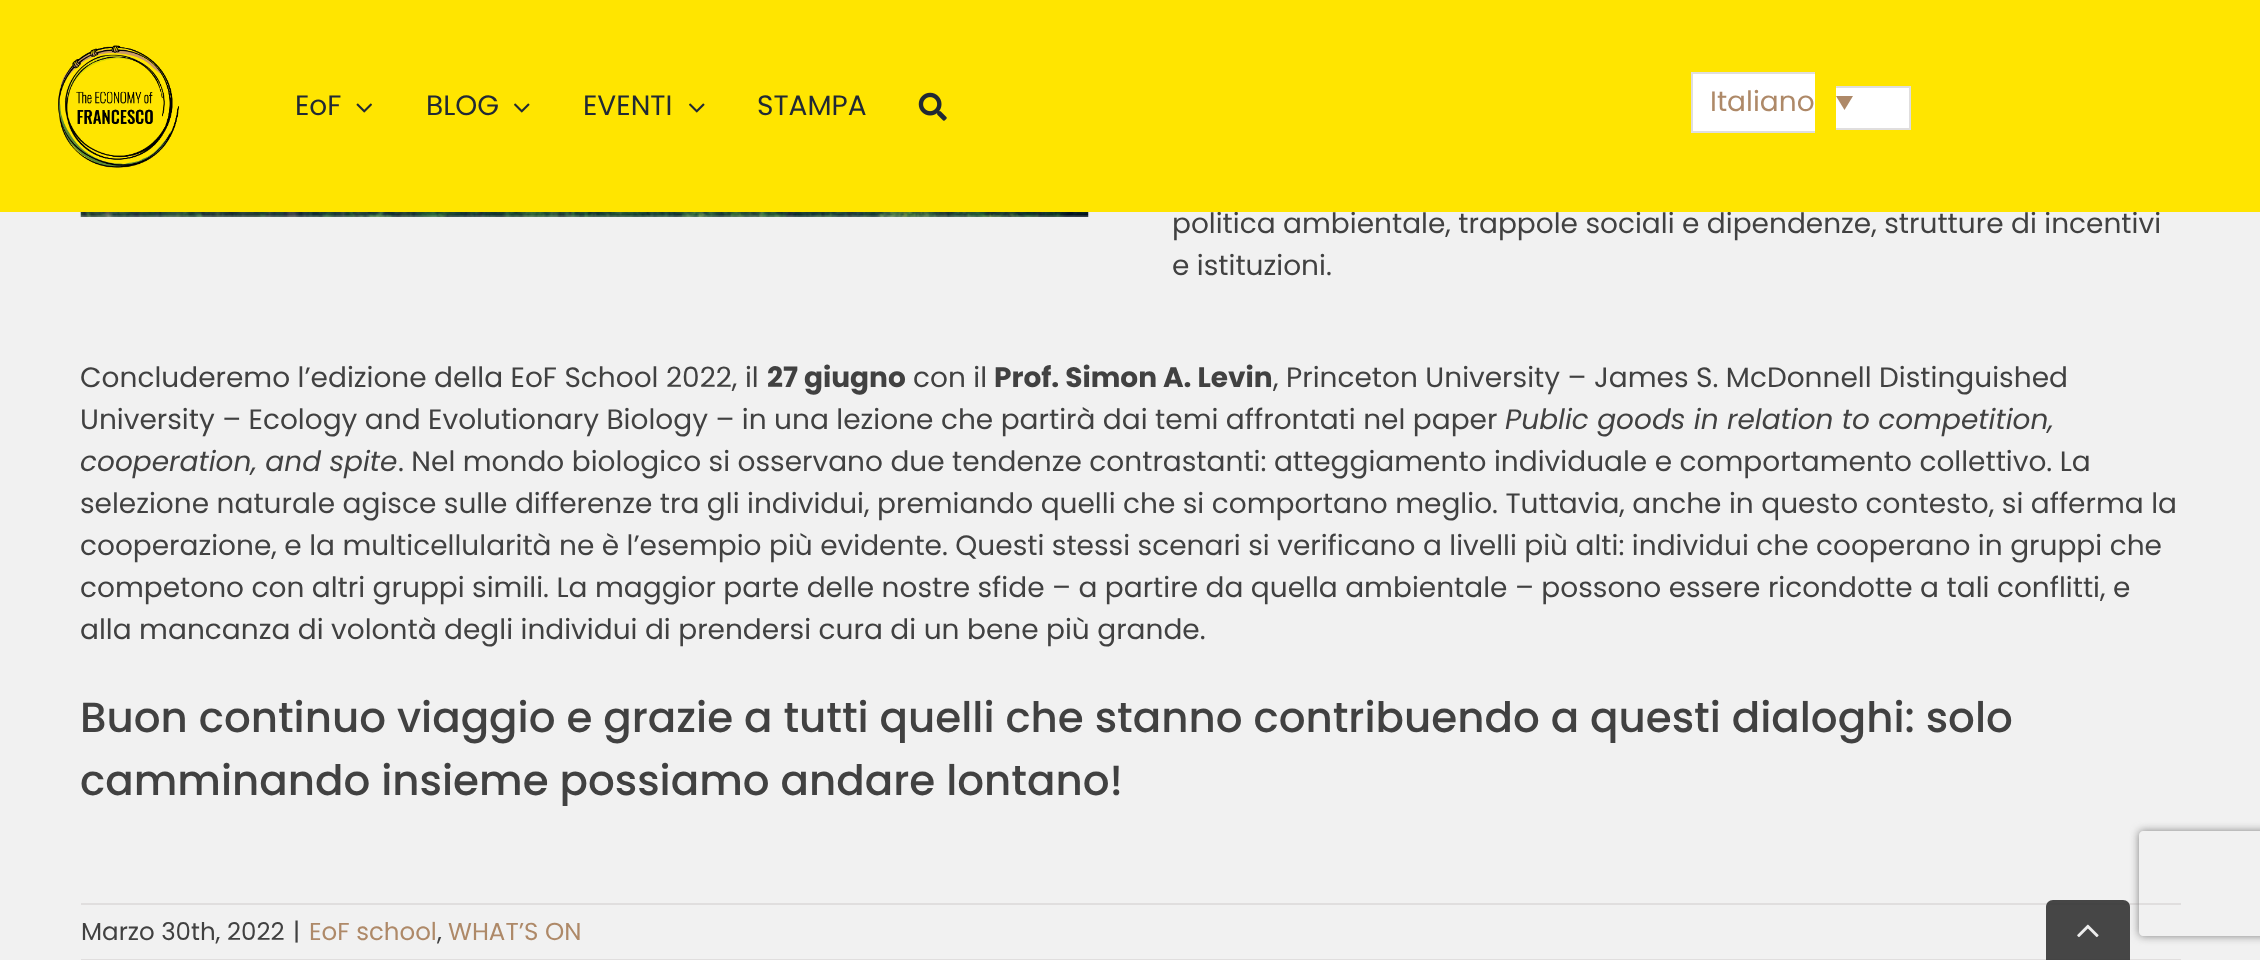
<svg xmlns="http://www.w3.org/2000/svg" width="2260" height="960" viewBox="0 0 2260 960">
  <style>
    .t1 { font: 28px Poppins; fill: #414141; }
    .t2 { font: 28px Poppins; fill: #212934; }
    .t3 { font: 28px Poppins; fill: #ae8968; }
    .t4 { font: bold 28px Poppins; fill: #414141; }
    .t5 { font: italic 28px Poppins; fill: #414141; }
    .t6 { font: 500 42px Poppins; fill: #414141; }
    .t7 { font: 24.5px Poppins; fill: #414141; }
    .t8 { font: 24.5px Poppins; fill: #ae8968; }
  </style>
  <defs>
    <clipPath id="clip1"><path d="M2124 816H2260V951H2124ZM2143 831H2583C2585 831 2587 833 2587 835V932C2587 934 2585 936 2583 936H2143C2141 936 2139 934 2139 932V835C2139 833 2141 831 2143 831Z" clip-rule="evenodd"/></clipPath>
  </defs>
  <rect width="100%" height="100%" fill="#f1f1f1"/>
  <text x="1172" y="233" class="t1">politica ambientale, trappole sociali e dipendenze, strutture di incentivi</text>
  <rect x="0" y="0" width="2260" height="212" fill="#ffe500"/>
  <image x="58" y="45" width="121" height="123" href="images/1.png"/>
  <text x="295" y="115" class="t2">EoF</text>
  <image x="356" y="103" width="16" height="10" href="images/2.png"/>
  <text x="426" y="115" class="t2">BLOG</text>
  <image x="514" y="103" width="16" height="10" href="images/3.png"/>
  <text x="583" y="115" class="t2">EVENTI</text>
  <image x="689" y="103" width="16" height="10" href="images/3.png"/>
  <text x="757" y="115" class="t2">STAMPA</text>
  <image x="918" y="92" width="29" height="29" href="images/4.png"/>
  <rect x="1693" y="74" width="122" height="57" fill="#fff"/>
  <rect x="1691" y="72" width="124" height="2" fill="#e0dede"/>
  <rect x="1691" y="131" width="124" height="2" fill="#e0dede"/>
  <rect x="1691" y="72" width="2" height="61" fill="#e0dede"/>
  <rect x="1836" y="88" width="73" height="40" fill="#fff"/>
  <rect x="1836" y="86" width="75" height="2" fill="#e0dede"/>
  <rect x="1909" y="86" width="2" height="44" fill="#e0dede"/>
  <rect x="1836" y="128" width="75" height="2" fill="#e0dede"/>
  <text x="1710" y="111" class="t3">Italiano</text>
  <path d="M1836 96H1853L1844.5 110Z" fill="#ae8968"/>
  <image x="80" y="212" width="1009" height="5" href="images/5.png"/>
  <text x="1172" y="275" class="t1">e istituzioni.</text>
  <text x="80" y="387" class="t1">Concluderemo l’edizione della EoF School 2022, il</text>
  <text x="767" y="387" class="t4">27 giugno</text>
  <text x="913" y="387" class="t1">con il</text>
  <text x="994" y="387" class="t4">Prof. Simon A. Levin</text>
  <text x="1273" y="387" class="t1">, Princeton University – James S. McDonnell Distinguished</text>
  <text x="80" y="429" class="t1">University – Ecology and Evolutionary Biology – in una lezione che partirà dai temi affrontati nel paper</text>
  <text x="1505" y="429" class="t5">Public goods in relation to competition,</text>
  <text x="80" y="471" class="t5">cooperation, and spite</text>
  <text x="398" y="471" class="t1">. Nel mondo biologico si osservano due tendenze contrastanti: atteggiamento individuale e comportamento collettivo. La</text>
  <text x="80" y="513" class="t1">selezione naturale agisce sulle differenze tra gli individui, premiando quelli che si comportano meglio. Tuttavia, anche in questo contesto, si afferma la</text>
  <text x="80" y="555" class="t1">cooperazione, e la multicellularità ne è l’esempio più evidente. Questi stessi scenari si verificano a livelli più alti: individui che cooperano in gruppi che</text>
  <text x="80" y="597" class="t1">competono con altri gruppi simili. La maggior parte delle nostre sfide – a partire da quella ambientale – possono essere ricondotte a tali conflitti, e</text>
  <text x="80" y="639" class="t1">alla mancanza di volontà degli individui di prendersi cura di un bene più grande.</text>
  <text x="80" y="732" class="t6">Buon continuo viaggio e grazie a tutti quelli che stanno contribuendo a questi dialoghi: solo</text>
  <text x="80" y="795" class="t6">camminando insieme possiamo andare lontano!</text>
  <rect x="81" y="903" width="2100" height="2" fill="#e0dede"/>
  <rect x="81" y="959" width="2100" height="1" fill="#e0dede"/>
  <text x="81" y="940" class="t7">Marzo 30th, 2022</text>
  <text x="293" y="940" class="t7">|</text>
  <text x="309" y="940" class="t8">EoF school</text>
  <text x="437" y="940" class="t7">,</text>
  <text x="448" y="940" class="t8">WHAT’S ON</text>
  <g clip-path="url(#clip1)">
    <rect x="2139" y="831" width="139" height="105" rx="4" fill="#808080" filter="blur(4.5px)"/>
  </g>
  <path d="M2053 900H2123C2127 900 2130 903 2130 907V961H2046V907C2046 903 2049 900 2053 900Z" fill="#333333e6"/>
  <image x="2077" y="924" width="22" height="14" href="images/6.png"/>
</svg>
